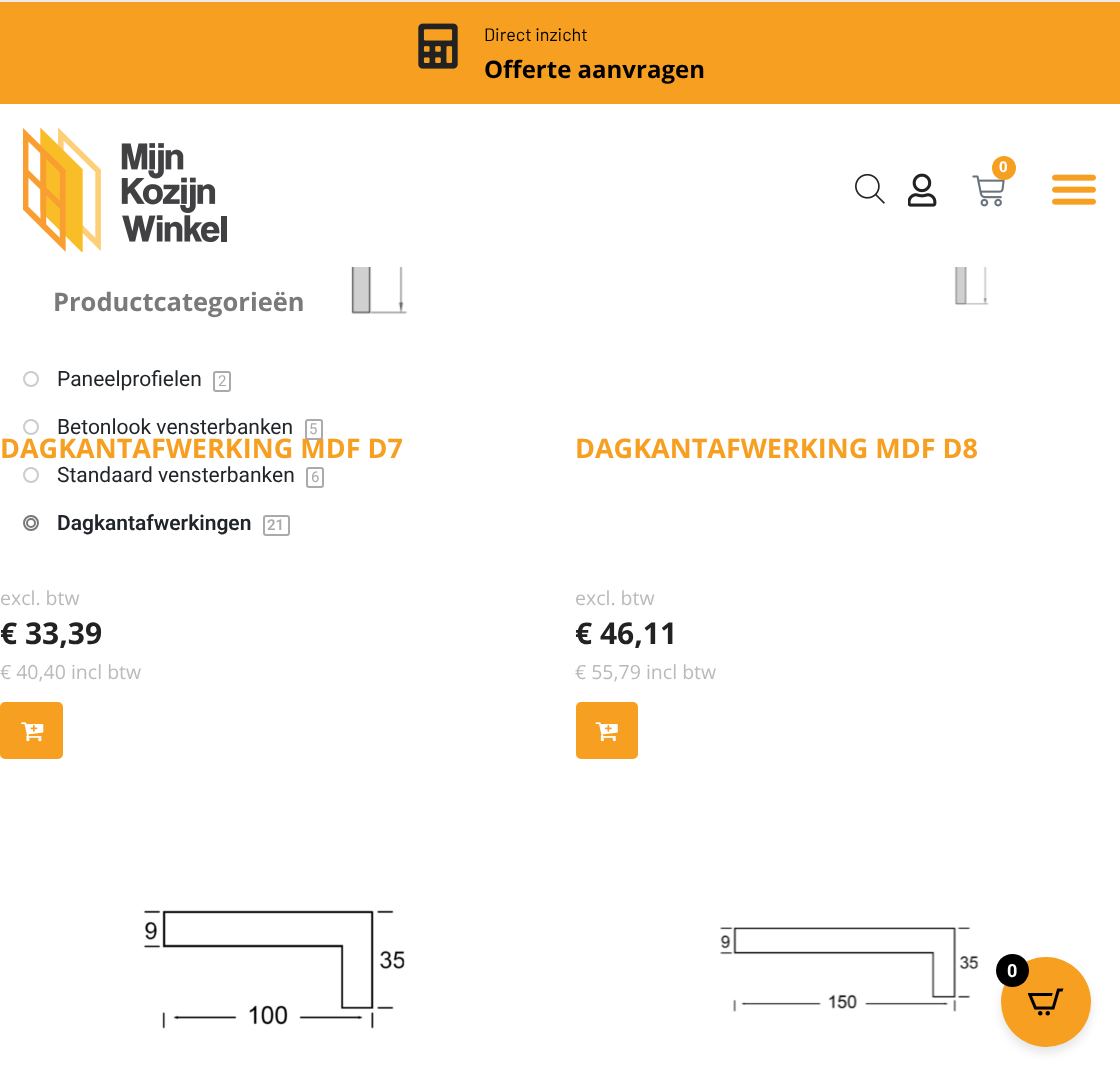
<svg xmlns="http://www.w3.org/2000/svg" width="1120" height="1076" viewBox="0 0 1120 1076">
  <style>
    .t1 { font: 18px Barlow; fill: #000; }
    .t2 { font: bold 24px Open Sans; fill: #000; }
    .t3 { font: bold 15px Open Sans; fill: #fff; }
    .t4 { font: bold 25.5px Open Sans; fill: #7a7a7a; }
    .t5 { font: 21px Roboto; fill: #212529; }
    .t6 { font: 15px Roboto; fill: #aaa; }
    .t7 { font: bold 27px Open Sans; fill: #f69f20; }
    .t8 { font: 600 21px Roboto; fill: #212529; }
    .t9 { font: 600 15px Roboto; fill: #aaa; }
    .t10 { font: 19.5px Open Sans; fill: #bababa; }
    .t11 { font: bold 30px Open Sans; fill: #222; }
    .t12 { font: bold 18px Roboto; fill: #fff; }
  </style>
  <rect width="100%" height="100%" fill="#fff"/>
  <rect x="0" y="0" width="1120" height="2" fill="#ebebeb"/>
  <rect x="0" y="2" width="1120" height="102" fill="#f69f20"/>
  <image x="418" y="23" width="40" height="46" href="images/1.png"/>
  <text x="484" y="41" class="t1">Direct inzicht</text>
  <text x="484" y="78" class="t2">Offerte aanvragen</text>
  <image x="23" y="128" width="204" height="124" href="images/2.png"/>
  <image x="972" y="175" width="33" height="32" href="images/3.png"/>
  <circle cx="1004" cy="168" r="12" fill="#f69f20"/>
  <text x="999" y="172" class="t3">0</text>
  <image x="855" y="174" width="30" height="30" href="images/4.png"/>
  <image x="908" y="173" width="29" height="34" href="images/5.png"/>
  <image x="1052" y="174" width="44" height="31" href="images/6.png"/>
  <image x="138" y="267" width="270" height="47" href="images/7.png"/>
  <text x="53" y="311" class="t4">Productcategorieën</text>
  <circle cx="31" cy="379" r="7" fill="none" stroke="#ccc" stroke-width="2"/>
  <text x="57" y="386" class="t5">Paneelprofielen</text>
  <rect x="214" y="372" width="16" height="19" rx="2" fill="none" stroke="#aaa" stroke-width="2"/>
  <text x="218" y="386" class="t6">2</text>
  <circle cx="31" cy="427" r="7" fill="none" stroke="#ccc" stroke-width="2"/>
  <text x="57" y="434" class="t5">Betonlook vensterbanken</text>
  <text x="0" y="458" class="t7">DAGKANTAFWERKING MDF D7</text>
  <rect x="306" y="420" width="16" height="19" rx="2" fill="#fff" stroke="#aaa" stroke-width="2"/>
  <text x="309" y="434" class="t6">5</text>
  <circle cx="31" cy="475" r="7" fill="none" stroke="#ccc" stroke-width="2"/>
  <text x="57" y="482" class="t5">Standaard vensterbanken</text>
  <rect x="307" y="468" width="16" height="19" rx="2" fill="none" stroke="#aaa" stroke-width="2"/>
  <text x="311" y="482" class="t6">6</text>
  <circle cx="31" cy="523" r="7" fill="none" stroke="#777" stroke-width="2"/>
  <circle cx="31" cy="523" r="4" fill="none" stroke="#777" stroke-width="2"/>
  <text x="57" y="530" class="t8">Dagkantafwerkingen</text>
  <rect x="264" y="516" width="25" height="19" rx="2" fill="none" stroke="#aaa" stroke-width="2"/>
  <text x="267" y="530" class="t9">21</text>
  <text x="0" y="605" class="t10">excl. btw</text>
  <text x="0" y="644" class="t11">€ 33,39</text>
  <text x="0" y="679" class="t10">€ 40,40 incl btw</text>
  <rect x="1" y="703" width="61" height="55" rx="4" fill="#f69f20" stroke="#f69f20" stroke-width="2"/>
  <image x="21" y="722" width="23" height="20" href="images/8.png"/>
  <image x="708" y="267" width="281" height="38" href="images/9.png"/>
  <text x="575" y="458" class="t7">DAGKANTAFWERKING MDF D8</text>
  <text x="575" y="605" class="t10">excl. btw</text>
  <text x="575" y="644" class="t11">€ 46,11</text>
  <text x="575" y="679" class="t10">€ 55,79 incl btw</text>
  <rect x="577" y="703" width="60" height="55" rx="4" fill="#f69f20" stroke="#f69f20" stroke-width="2"/>
  <image x="595" y="722" width="23" height="20" href="images/10.png"/>
  <image x="143" y="910" width="262" height="119" href="images/11.png"/>
  <image x="719" y="927" width="260" height="85" href="images/12.png"/>
  <rect x="1001" y="963" width="90" height="90" rx="45" fill="#0000001a" filter="blur(5px)"/>
  <circle cx="1046" cy="1002" r="45" fill="#f69f20"/>
  <circle cx="1012.5" cy="970.5" r="16.5" fill="#000"/>
  <text x="1007" y="977" class="t12">0</text>
  <image x="1028" y="988" width="36" height="28" href="images/13.png"/>
</svg>
